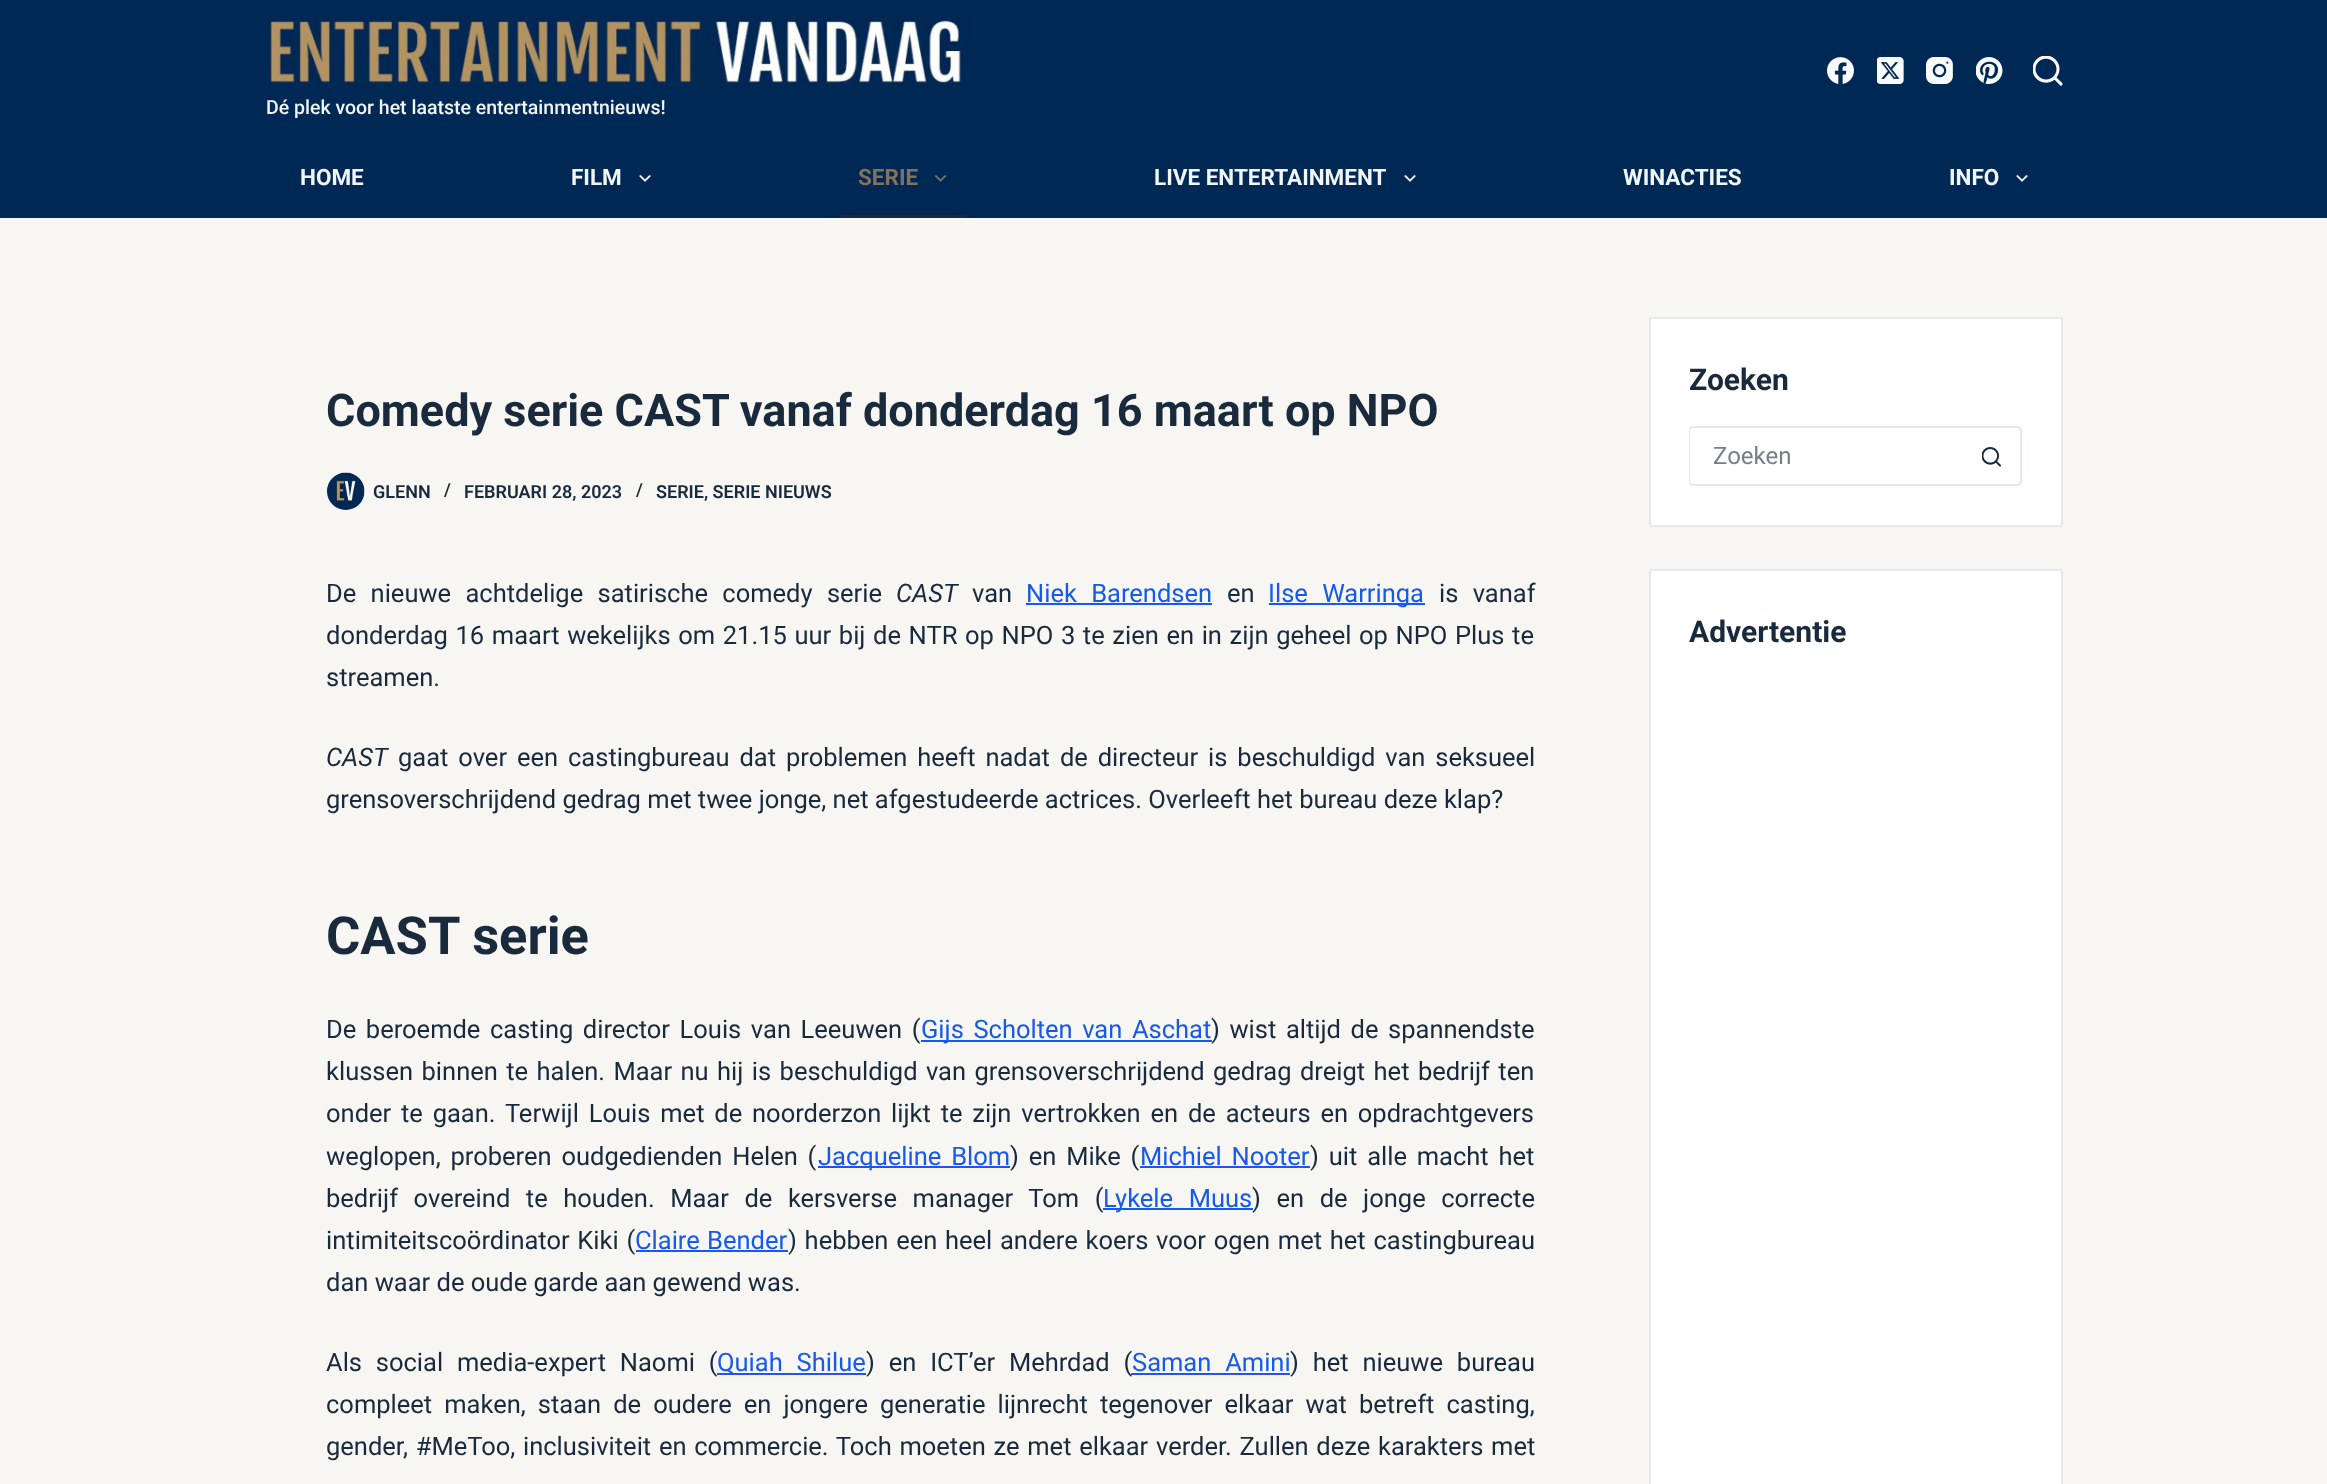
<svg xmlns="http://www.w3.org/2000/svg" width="2327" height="1484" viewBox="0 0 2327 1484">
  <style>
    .t1 { font: 500 19.5px Roboto; fill: #f2f5f7; }
    .t2 { font: bold 22.5px Roboto; fill: #f2f5f7; }
    .t3 { font: bold 22.5px Roboto; fill: #82725b; }
    .t4 { font: bold 45px Roboto; fill: #192a3d; }
    .t5 { font: 600 18px Roboto; fill: #192a3d; }
    .t6 { font: 25.5px Roboto; fill: #192a3d; }
    .t7 { font: italic 25.5px Roboto; fill: #192a3d; }
    .t8 { font: 25.5px Roboto; fill: #1559ed; }
    .t9 { font: bold 52.5px Roboto; fill: #192a3d; }
    .t10 { font: bold 30px Roboto; fill: #192a3d; }
    .t11 { font: 24px Roboto; fill: #757f8b; }
  </style>
  <rect width="100%" height="100%" fill="#f7f6f2"/>
  <rect x="0" y="0" width="2327" height="218" fill="#002854"/>
  <image x="1827" y="57" width="27" height="27" href="images/1.png"/>
  <image x="1877" y="57" width="27" height="27" href="images/2.png"/>
  <image x="1926" y="57" width="27" height="27" href="images/3.png"/>
  <image x="1976" y="57" width="27" height="27" href="images/4.png"/>
  <image x="2033" y="56" width="30" height="30" href="images/5.png"/>
  <image x="267" y="16" width="696" height="70" href="images/6.png"/>
  <text x="266" y="114" class="t1">Dé plek voor het laatste entertainmentnieuws!</text>
  <text x="300" y="185" class="t2">HOME</text>
  <text x="571" y="185" class="t2">FILM</text>
  <image x="639" y="175" width="12" height="7" href="images/7.png"/>
  <text x="858" y="185" class="t3">SERIE</text>
  <image x="935" y="175" width="12" height="7" href="images/8.png"/>
  <rect x="840" y="215" width="126" height="3" fill="#192a3d"/>
  <text x="1154" y="185" class="t2">LIVE ENTERTAINMENT</text>
  <image x="1404" y="175" width="12" height="7" href="images/7.png"/>
  <text x="1623" y="185" class="t2">WINACTIES</text>
  <text x="1949" y="185" class="t2">INFO</text>
  <image x="2016" y="175" width="12" height="7" href="images/7.png"/>
  <text x="326" y="426" class="t4">Comedy serie CAST vanaf donderdag 16 maart op NPO</text>
  <image x="327" y="472" width="38" height="38" href="images/9.png"/>
  <text x="373" y="498" class="t5">GLENN</text>
  <text x="444" y="496" class="t5">/</text>
  <text x="464" y="498" class="t5">FEBRUARI 28, 2023</text>
  <text x="636" y="496" class="t5">/</text>
  <text x="656" y="498" class="t5">SERIE, SERIE NIEUWS</text>
  <text x="326" y="602" word-spacing="8" class="t6">De nieuwe achtdelige satirische comedy serie</text>
  <text x="896" y="602" class="t7">CAST</text>
  <text x="972" y="602" class="t6">van</text>
  <text x="1026" y="602" word-spacing="8" class="t8">Niek Barendsen</text>
  <rect x="1026" y="603" width="186" height="2" fill="#1559ed"/>
  <text x="1227" y="602" class="t6">en</text>
  <rect x="1269" y="603" width="156" height="2" fill="#1559ed"/>
  <text x="1268" y="602" word-spacing="8" class="t8">Ilse Warringa</text>
  <text x="1439" y="602" word-spacing="8" class="t6">is vanaf</text>
  <text x="326" y="644" word-spacing="1.3" class="t6">donderdag 16 maart wekelijks om 21.15 uur bij de NTR op NPO 3 te zien en in zijn geheel op NPO Plus te</text>
  <text x="326" y="686" class="t6">streamen.</text>
  <text x="326" y="766" class="t7">CAST</text>
  <text x="398" y="766" word-spacing="3.6" class="t6">gaat over een castingbureau dat problemen heeft nadat de directeur is beschuldigd van seksueel</text>
  <text x="326" y="808" class="t6">grensoverschrijdend gedrag met twee jonge, net afgestudeerde actrices. Overleeft het bureau deze klap?</text>
  <text x="326" y="954" class="t9">CAST serie</text>
  <text x="326" y="1038" word-spacing="3.25" class="t6">De beroemde casting director Louis van Leeuwen (</text>
  <rect x="921" y="1040" width="291" height="2" fill="#1559ed"/>
  <text x="921" y="1038" word-spacing="3.25" class="t8">Gijs Scholten van Aschat</text>
  <text x="1211" y="1038" word-spacing="3.25" class="t6">) wist altijd de spannendste</text>
  <text x="326" y="1080" word-spacing="2.1" class="t6">klussen binnen te halen. Maar nu hij is beschuldigd van grensoverschrijdend gedrag dreigt het bedrijf ten</text>
  <text x="326" y="1122" word-spacing="3.5" class="t6">onder te gaan. Terwijl Louis met de noorderzon lijkt te zijn vertrokken en de acteurs en opdrachtgevers</text>
  <text x="326" y="1165" word-spacing="3.5" class="t6">weglopen, proberen oudgedienden Helen (</text>
  <rect x="818" y="1166" width="192" height="2" fill="#1559ed"/>
  <text x="818" y="1165" word-spacing="3.5" class="t8">Jacqueline Blom</text>
  <text x="1010" y="1165" word-spacing="3.5" class="t6">) en Mike (</text>
  <text x="1140" y="1165" word-spacing="3.5" class="t8">Michiel Nooter</text>
  <rect x="1140" y="1166" width="170" height="2" fill="#1559ed"/>
  <text x="1310" y="1165" word-spacing="3.5" class="t6">) uit alle macht het</text>
  <text x="326" y="1207" word-spacing="9.25" class="t6">bedrijf overeind te houden. Maar de kersverse manager Tom (</text>
  <rect x="1103" y="1208" width="150" height="2" fill="#1559ed"/>
  <text x="1103" y="1207" word-spacing="9.25" class="t8">Lykele Muus</text>
  <text x="1252" y="1207" word-spacing="9.25" class="t6">) en de jonge correcte</text>
  <text x="326" y="1249" word-spacing="1.4" class="t6">intimiteitscoördinator Kiki (</text>
  <text x="635" y="1249" word-spacing="1" class="t8">Claire Bender</text>
  <rect x="636" y="1250" width="152" height="2" fill="#1559ed"/>
  <text x="788" y="1249" word-spacing="1.4" class="t6">) hebben een heel andere koers voor ogen met het castingbureau</text>
  <text x="326" y="1291" class="t6">dan waar de oude garde aan gewend was.</text>
  <text x="326" y="1371" word-spacing="7.5" class="t6">Als social media-expert Naomi (</text>
  <rect x="717" y="1373" width="149" height="2" fill="#1559ed"/>
  <text x="717" y="1371" word-spacing="7.5" class="t8">Quiah Shilue</text>
  <text x="866" y="1371" word-spacing="7.5" class="t6">) en ICT’er Mehrdad (</text>
  <text x="1132" y="1371" word-spacing="7.5" class="t8">Saman Amini</text>
  <rect x="1131" y="1373" width="159" height="2" fill="#1559ed"/>
  <text x="1290" y="1371" word-spacing="7.5" class="t6">) het nieuwe bureau</text>
  <text x="326" y="1413" word-spacing="5.75" class="t6">compleet maken, staan de oudere en jongere generatie lijnrecht tegenover elkaar wat betreft casting,</text>
  <text x="326" y="1455" word-spacing="1.4" class="t6">gender, #MeToo, inclusiviteit en commercie. Toch moeten ze met elkaar verder. Zullen deze karakters met</text>
  <rect x="1650" y="318" width="412" height="208" fill="#fff" stroke="#e6eaef" stroke-width="2"/>
  <text x="1689" y="390" class="t10">Zoeken</text>
  <path d="M1694 426H1962V486H1694C1691 486 1689 484 1689 482V430C1689 428 1691 426 1694 426ZM1694 428H1962V484H1694C1692 484 1690 483 1690 482V430C1690 429 1692 428 1694 428Z" fill="#e1e8ed" fill-rule="evenodd"/>
  <text x="1713" y="464" class="t11">Zoeken</text>
  <path d="M1962 426H2018C2020 426 2022 428 2022 430V482C2022 484 2020 486 2018 486H1962ZM1962 428H2018C2019 428 2020 429 2020 430V482C2020 483 2019 484 2018 484H1962Z" fill="#e1e8ed" fill-rule="evenodd"/>
  <image x="1982" y="447" width="19" height="20" href="images/10.png"/>
  <rect x="1650" y="570" width="412" height="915" fill="#fff" stroke="#e6eaef" stroke-width="2"/>
  <text x="1689" y="642" class="t10">Advertentie</text>
</svg>
